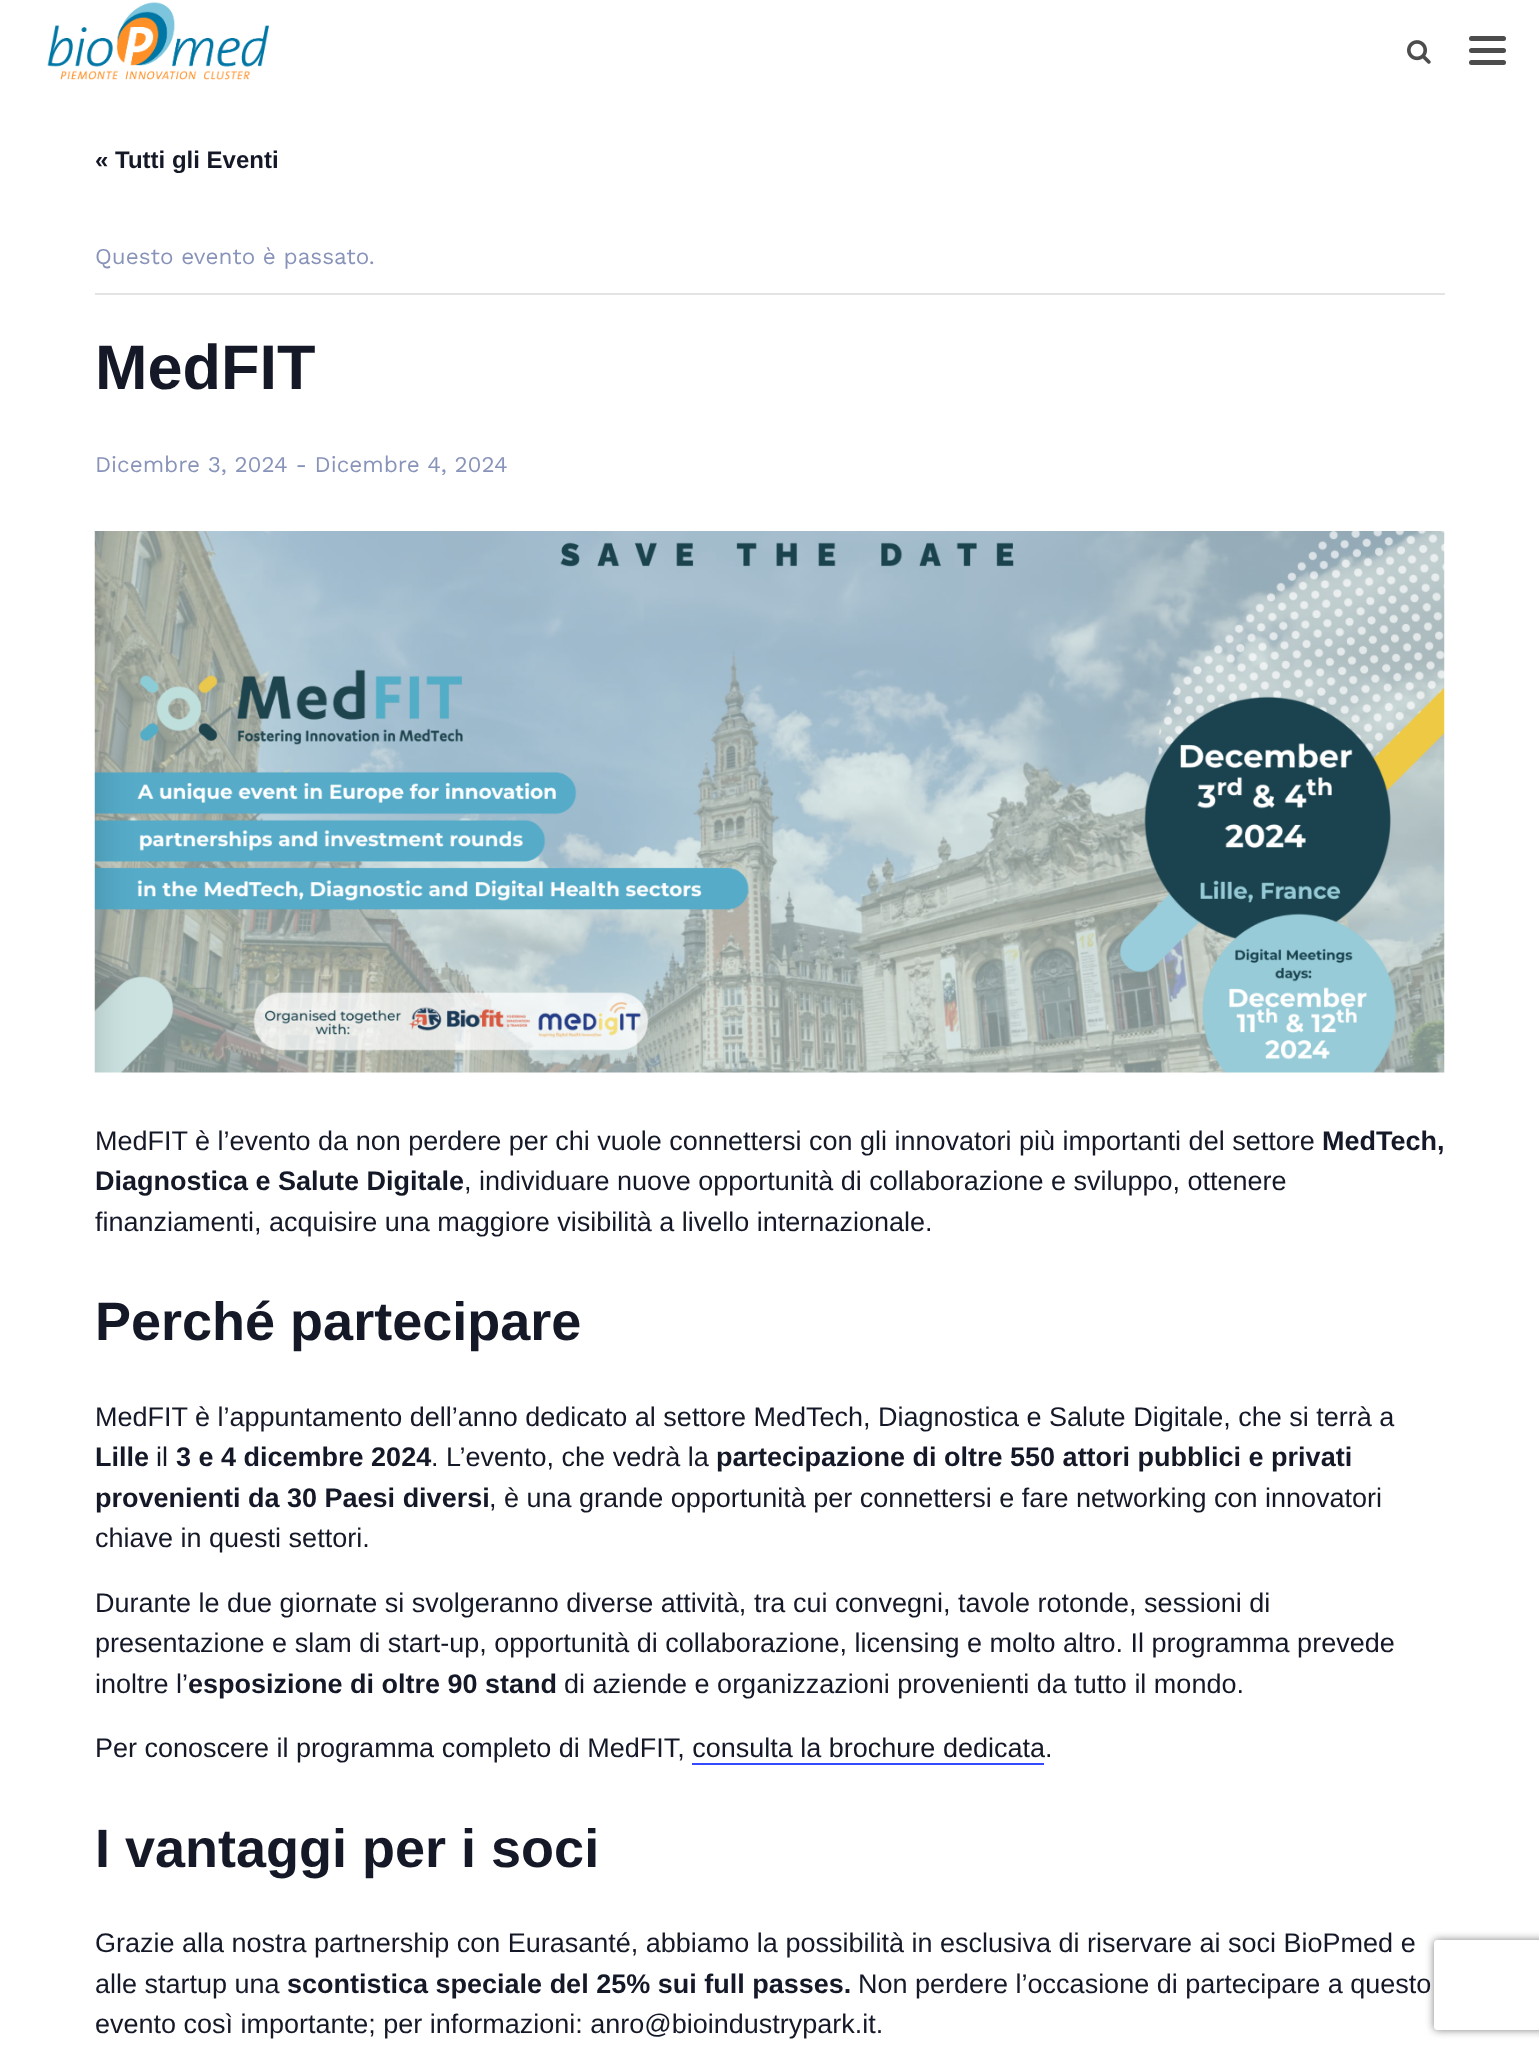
<svg xmlns="http://www.w3.org/2000/svg" width="1539" height="2050" viewBox="0 0 1539 2050">
  <style>
    .t1 { font: bold 24px Liberation Sans; fill: #141827; }
    .t2 { font: 22.5px Work Sans; fill: #8893b9; }
    .t3 { font: bold 63px Liberation Sans; fill: #141827; }
    .t4 { font: 27px Liberation Sans; fill: #141827; }
    .t5 { font: bold 27px Liberation Sans; fill: #141827; }
    .t6 { font: bold 54px Liberation Sans; fill: #141827; }
  </style>
  <defs>
    <clipPath id="clip1"><path d="M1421 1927H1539V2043H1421ZM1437 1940H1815C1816.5 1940 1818 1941.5 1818 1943V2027C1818 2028.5 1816.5 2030 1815 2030H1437C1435.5 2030 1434 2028.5 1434 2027V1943C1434 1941.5 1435.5 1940 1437 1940Z" clip-rule="evenodd"/></clipPath>
  </defs>
  <rect width="100%" height="100%" fill="#fff"/>
  <image x="47" y="2" width="222" height="78" href="images/1.png"/>
  <image x="1407" y="40" width="24" height="24" href="images/2.png"/>
  <rect x="1469" y="48" width="37" height="5" rx="2.5" fill="#4c4c4c"/>
  <rect x="1469" y="36" width="37" height="5" rx="2.5" fill="#4c4c4c"/>
  <rect x="1469" y="60" width="37" height="5" rx="2.5" fill="#4c4c4c"/>
  <text x="95" y="168" class="t1">« Tutti gli Eventi</text>
  <rect x="95" y="293" width="1350" height="2" fill="#e4e4e4"/>
  <text x="95" y="264" class="t2">Questo evento è passato.</text>
  <text x="95" y="389" class="t3">MedFIT</text>
  <text x="95" y="472" class="t2">Dicembre 3, 2024 - Dicembre 4, 2024</text>
  <image x="94" y="531" width="1351" height="542" href="images/3.png"/>
  <text x="95" y="1150" class="t4">MedFIT è l’evento da non perdere per chi vuole connettersi con gli innovatori più importanti del settore</text>
  <text x="1322" y="1150" class="t5">MedTech,</text>
  <text x="95" y="1190" class="t5">Diagnostica e Salute Digitale</text>
  <text x="464" y="1190" class="t4">, individuare nuove opportunità di collaborazione e sviluppo, ottenere</text>
  <text x="95" y="1231" class="t4">finanziamenti, acquisire una maggiore visibilità a livello internazionale.</text>
  <text x="95" y="1340" class="t6">Perché partecipare</text>
  <text x="95" y="1426" class="t4">MedFIT è l’appuntamento dell’anno dedicato al settore MedTech, Diagnostica e Salute Digitale, che si terrà a</text>
  <text x="95" y="1466" class="t5">Lille</text>
  <text x="156" y="1466" class="t4">il</text>
  <text x="176" y="1466" class="t5">3 e 4 dicembre 2024</text>
  <text x="431" y="1466" class="t4">. L’evento, che vedrà la</text>
  <text x="716" y="1466" class="t5">partecipazione di oltre 550 attori pubblici e privati</text>
  <text x="95" y="1507" class="t5">provenienti da 30 Paesi diversi</text>
  <text x="489" y="1507" class="t4">, è una grande opportunità per connettersi e fare networking con innovatori</text>
  <text x="95" y="1547" class="t4">chiave in questi settori.</text>
  <text x="95" y="1612" class="t4">Durante le due giornate si svolgeranno diverse attività, tra cui convegni, tavole rotonde, sessioni di</text>
  <text x="95" y="1652" class="t4">presentazione e slam di start-up, opportunità di collaborazione, licensing e molto altro. Il programma prevede</text>
  <text x="95" y="1693" class="t4">inoltre l’</text>
  <text x="188" y="1693" class="t5">esposizione di oltre 90 stand</text>
  <text x="564" y="1693" class="t4">di aziende e organizzazioni provenienti da tutto il mondo.</text>
  <text x="95" y="1757" class="t4">Per conoscere il programma completo di MedFIT, consulta la brochure dedicata.</text>
  <rect x="692" y="1763" width="352" height="2" fill="#334aff"/>
  <text x="95" y="1867" class="t6">I vantaggi per i soci</text>
  <text x="95" y="1952" class="t4">Grazie alla nostra partnership con Eurasanté, abbiamo la possibilità in esclusiva di riservare ai soci BioPmed e</text>
  <text x="95" y="1993" class="t4">alle startup una</text>
  <text x="287" y="1993" class="t5">scontistica speciale del 25% sui full passes.</text>
  <g clip-path="url(#clip1)">
    <rect x="1434" y="1940" width="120" height="90" rx="3" fill="#808080" filter="blur(4px)"/>
  </g>
  <text x="858" y="1993" class="t4">Non perdere l’occasione di partecipare a questo</text>
  <text x="95" y="2033" class="t4">evento così importante; per informazioni: anro@bioindustrypark.it.</text>
</svg>
